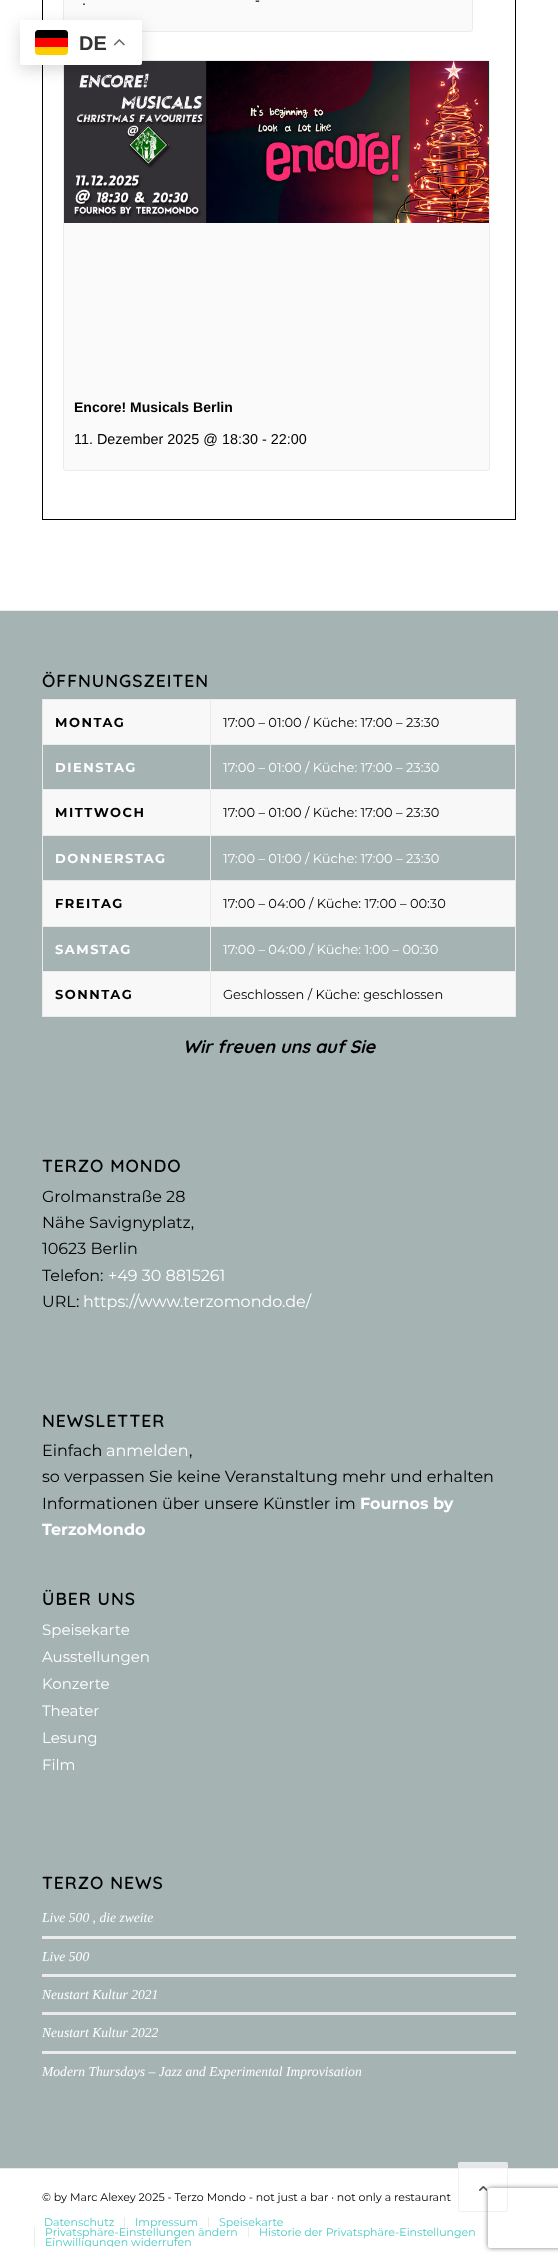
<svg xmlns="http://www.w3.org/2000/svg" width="558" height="2262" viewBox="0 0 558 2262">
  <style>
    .t1 { font: 14.4px Liberation Sans; fill: #000; }
    .t2 { font: bold 14px Liberation Sans; fill: #000; }
    .t3 { font: 600 17.5px Quicksand; letter-spacing: 1px; fill: #000; }
    .t4 { font: bold 13px Montserrat; letter-spacing: 1.5px; fill: #000; }
    .t5 { font: 13px Montserrat; fill: #000; }
    .t6 { font: bold 13px Montserrat; letter-spacing: 1.5px; fill: #fff; }
    .t7 { font: 13px Montserrat; fill: #fff; }
    .t8 { font: italic bold 18px Quicksand; fill: #000; }
    .t9 { font: 16px Montserrat; fill: #000; }
    .t10 { font: 16px Montserrat; fill: #fff; }
    .t11 { font: bold 16px Montserrat; fill: #fff; }
    .t12 { font: 15px Montserrat; fill: #fff; }
    .t13 { font: italic 13.6px Liberation Serif; fill: #fff; }
    .t14 { font: 11px Montserrat; fill: #000; }
    .t15 { font: 11px Montserrat; fill: #4ecac2; }
    .t16 { font: bold 20px Liberation Sans; fill: #333; }
  </style>
  <defs>
    <clipPath id="clip1"><rect x="27" y="2211" width="474" height="36"/></clipPath>
    <clipPath id="clip2"><path d="M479 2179H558V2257H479ZM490 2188H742C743 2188 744 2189 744 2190V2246C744 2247 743 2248 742 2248H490C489 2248 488 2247 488 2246V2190C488 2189 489 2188 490 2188Z" clip-rule="evenodd"/></clipPath>
  </defs>
  <rect width="100%" height="100%" fill="#fff"/>
  <rect x="42.5" y="-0.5" width="473" height="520" fill="none" stroke="#000"/>
  <rect x="63.5" y="-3.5" width="409" height="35" rx="2.5" fill="#fafafa" stroke="#ebebeb"/>
  <text x="255" y="5" class="t1">-</text>
  <text x="82" y="5" class="t1">.</text>
  <rect x="63.5" y="60.5" width="426" height="410" rx="2.5" fill="#fafafa" stroke="#ebebeb"/>
  <image x="64" y="61" width="425" height="162" href="images/1.png"/>
  <text x="74" y="412" class="t2">Encore! Musicals Berlin</text>
  <text x="74" y="444" class="t1">11. Dezember 2025 @ 18:30 - 22:00</text>
  <rect x="0" y="611" width="558" height="1557" fill="#a5b3b3"/>
  <rect x="0" y="610" width="558" height="1" fill="#ebebeb"/>
  <text x="42" y="687" class="t3">ÖFFNUNGSZEITEN</text>
  <rect x="43" y="700" width="472" height="316" fill="#f8f8f8"/>
  <rect x="42" y="699" width="474" height="1" fill="#ebebeb"/>
  <rect x="515" y="744" width="1" height="273" fill="#ebebeb"/>
  <rect x="515" y="699" width="1" height="46" fill="#ebebeb"/>
  <rect x="43" y="745" width="472" height="44" fill="#a5b3b3"/>
  <rect x="43" y="836" width="472" height="44" fill="#a5b3b3"/>
  <rect x="43" y="927" width="472" height="44" fill="#a5b3b3"/>
  <rect x="210" y="1016" width="306" height="1" fill="#ebebeb"/>
  <rect x="210" y="971" width="1" height="46" fill="#ebebeb"/>
  <rect x="210" y="971" width="306" height="1" fill="#ebebeb"/>
  <rect x="210" y="926" width="1" height="46" fill="#ebebeb"/>
  <rect x="210" y="926" width="306" height="1" fill="#ebebeb"/>
  <rect x="210" y="880" width="1" height="47" fill="#ebebeb"/>
  <rect x="210" y="880" width="306" height="1" fill="#ebebeb"/>
  <rect x="210" y="835" width="1" height="46" fill="#ebebeb"/>
  <rect x="210" y="835" width="306" height="1" fill="#ebebeb"/>
  <rect x="210" y="789" width="1" height="47" fill="#ebebeb"/>
  <rect x="210" y="789" width="306" height="1" fill="#ebebeb"/>
  <rect x="210" y="744" width="1" height="46" fill="#ebebeb"/>
  <rect x="210" y="744" width="306" height="1" fill="#ebebeb"/>
  <rect x="210" y="699" width="1" height="46" fill="#ebebeb"/>
  <rect x="42" y="1016" width="169" height="1" fill="#ebebeb"/>
  <rect x="42" y="971" width="1" height="46" fill="#ebebeb"/>
  <rect x="42" y="971" width="169" height="1" fill="#ebebeb"/>
  <rect x="42" y="926" width="1" height="46" fill="#ebebeb"/>
  <rect x="42" y="926" width="169" height="1" fill="#ebebeb"/>
  <rect x="42" y="880" width="1" height="47" fill="#ebebeb"/>
  <rect x="42" y="880" width="169" height="1" fill="#ebebeb"/>
  <rect x="42" y="835" width="1" height="46" fill="#ebebeb"/>
  <rect x="42" y="835" width="169" height="1" fill="#ebebeb"/>
  <rect x="42" y="789" width="1" height="47" fill="#ebebeb"/>
  <rect x="42" y="789" width="169" height="1" fill="#ebebeb"/>
  <rect x="42" y="744" width="1" height="46" fill="#ebebeb"/>
  <rect x="42" y="744" width="169" height="1" fill="#ebebeb"/>
  <rect x="42" y="699" width="1" height="46" fill="#ebebeb"/>
  <text x="55" y="727" class="t4">MONTAG</text>
  <text x="223" y="727" class="t5">17:00 – 01:00 / Küche: 17:00 – 23:30</text>
  <text x="55" y="772" class="t6">DIENSTAG</text>
  <text x="223" y="772" class="t7">17:00 – 01:00 / Küche: 17:00 – 23:30</text>
  <text x="55" y="817" class="t4">MITTWOCH</text>
  <text x="223" y="817" class="t5">17:00 – 01:00 / Küche: 17:00 – 23:30</text>
  <text x="55" y="863" class="t6">DONNERSTAG</text>
  <text x="223" y="863" class="t7">17:00 – 01:00 / Küche: 17:00 – 23:30</text>
  <text x="55" y="908" class="t4">FREITAG</text>
  <text x="223" y="908" class="t5">17:00 – 04:00 / Küche: 17:00 – 00:30</text>
  <text x="55" y="954" class="t6">SAMSTAG</text>
  <text x="223" y="954" class="t7">17:00 – 04:00 / Küche: 1:00 – 00:30</text>
  <text x="55" y="999" class="t4">SONNTAG</text>
  <text x="223" y="999" class="t5">Geschlossen / Küche: geschlossen</text>
  <text x="183" y="1053" class="t8">Wir freuen uns auf Sie</text>
  <text x="42" y="1172" class="t3">TERZO MONDO</text>
  <text x="42" y="1202" class="t9">Grolmanstraße 28</text>
  <text x="42" y="1228" class="t9">Nähe Savignyplatz,</text>
  <text x="42" y="1254" class="t9">10623 Berlin</text>
  <text x="42" y="1281" class="t9">Telefon:</text>
  <text x="108" y="1281" class="t10">+49 30 8815261</text>
  <text x="42" y="1307" class="t9">URL:</text>
  <text x="83" y="1307" class="t10">https://www.terzomondo.de/</text>
  <text x="42" y="1427" class="t3">NEWSLETTER</text>
  <text x="42" y="1456" class="t9">Einfach</text>
  <text x="106" y="1456" class="t10">anmelden</text>
  <text x="189" y="1456" class="t9">,</text>
  <text x="42" y="1482" class="t9">so verpassen Sie keine Veranstaltung mehr und erhalten</text>
  <text x="42" y="1509" class="t9">Informationen über unsere Künstler im</text>
  <text x="360" y="1509" class="t11">Fournos by</text>
  <text x="42" y="1535" class="t11">TerzoMondo</text>
  <text x="42" y="1605" class="t3">ÜBER UNS</text>
  <text x="42" y="1635" class="t12">Speisekarte</text>
  <text x="42" y="1662" class="t12">Ausstellungen</text>
  <text x="42" y="1689" class="t12">Konzerte</text>
  <text x="42" y="1716" class="t12">Theater</text>
  <text x="42" y="1743" class="t12">Lesung</text>
  <text x="42" y="1770" class="t12">Film</text>
  <text x="42" y="1889" class="t3">TERZO NEWS</text>
  <text x="42" y="1922" class="t13">Live 500 , die zweite</text>
  <rect x="42" y="1936" width="474" height="3" fill="#ebebeb"/>
  <text x="42" y="1961" class="t13">Live 500</text>
  <rect x="42" y="1974" width="474" height="3" fill="#ebebeb"/>
  <text x="42" y="1999" class="t13">Neustart Kultur 2021</text>
  <rect x="42" y="2012" width="474" height="3" fill="#ebebeb"/>
  <text x="42" y="2037" class="t13">Neustart Kultur 2022</text>
  <rect x="42" y="2051" width="474" height="3" fill="#ebebeb"/>
  <text x="42" y="2076" class="t13">Modern Thursdays – Jazz and Experimental Improvisation</text>
  <rect x="0" y="2168" width="558" height="1" fill="#ebebeb"/>
  <text x="42" y="2201" class="t14">© by Marc Alexey 2025 - Terzo Mondo - not just a bar · not only a restaurant</text>
  <text x="44" y="2226" class="t15">Datenschutz</text>
  <rect x="124" y="2217" width="1" height="10" fill="#ebebeb"/>
  <text x="135" y="2226" class="t15">Impressum</text>
  <rect x="208" y="2217" width="1" height="10" fill="#ebebeb"/>
  <text x="219" y="2226" class="t15">Speisekarte</text>
  <rect x="34" y="2227" width="1" height="20" fill="#ebebeb"/>
  <text x="45" y="2236" class="t15">Privatsphäre-Einstellungen ändern</text>
  <rect x="248" y="2227" width="1" height="10" fill="#ebebeb"/>
  <text x="259" y="2236" class="t15">Historie der Privatsphäre-Einstellungen</text>
  <g clip-path="url(#clip1)">
    <text x="45" y="2246" class="t15">Einwilligungen widerrufen</text>
  </g>
  <rect x="20" y="25" width="122" height="45" rx="2" fill="#00000026" filter="blur(7.5px)"/>
  <rect x="20" y="20" width="122" height="45" rx="2" fill="#fff"/>
  <path d="M35 47H68V52C68 53.5 66.5 55 65 55H38C36.5 55 35 53.5 35 52Z" fill="#fc0"/>
  <path d="M38 30H65C66.5 30 68 31.5 68 33V38H35V33C35 31.5 36.5 30 38 30Z" fill="#000"/>
  <rect x="35" y="38" width="33" height="9" fill="#f00"/>
  <text x="79" y="50" class="t16">DE</text>
  <image x="114" y="39" width="11" height="7" href="images/2.png"/>
  <rect x="458" y="2162" width="50" height="50" rx="2" fill="#ffffffb3"/>
  <rect x="458.5" y="2162.5" width="49" height="49" rx="1.5" fill="none" stroke="#ebebebb3"/>
  <image x="479" y="2186" width="8" height="5" href="images/3.png"/>
  <g clip-path="url(#clip2)">
    <rect x="488" y="2188" width="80" height="60" rx="2" fill="#808080" filter="blur(2.5px)"/>
  </g>
</svg>
